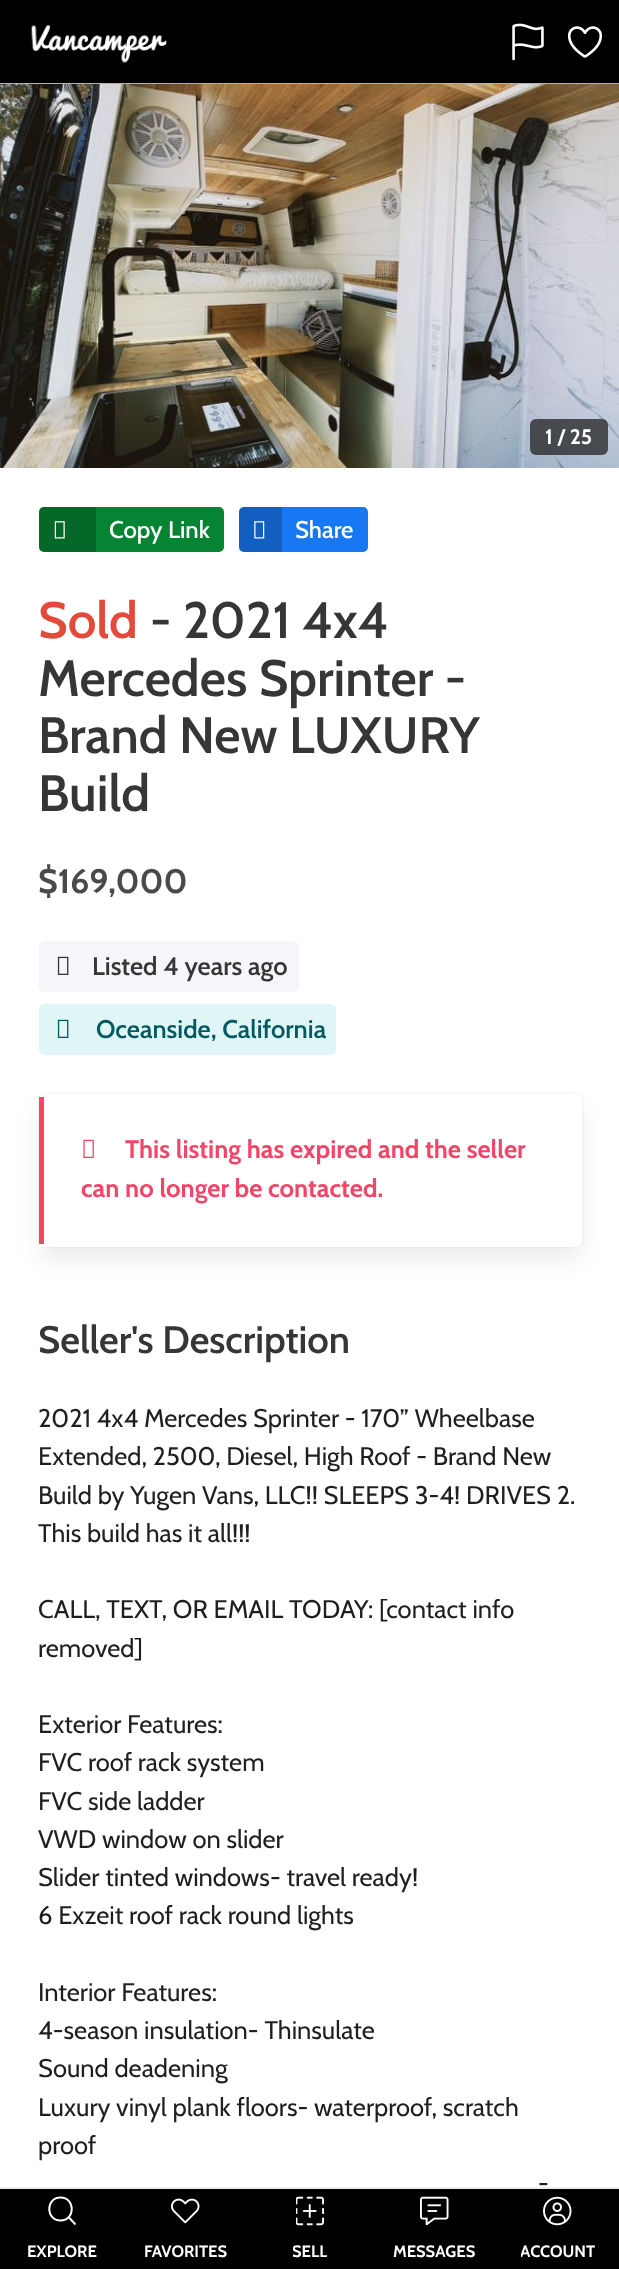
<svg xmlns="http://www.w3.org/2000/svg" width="619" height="2269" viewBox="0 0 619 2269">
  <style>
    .t1 { font: bold 21px Cabin; fill: #fff; }
    .t2 { font: 500 24px Cabin; fill: #fff; }
    .t3 { font: 600 51px Cabin; fill: #e34a3b; }
    .t4 { font: 600 51px Cabin; fill: #363636; }
    .t5 { font: bold 34px Cabin; fill: #4a4a4a; }
    .t6 { font: 600 25.5px Cabin; fill: #363636; }
    .t7 { font: 600 25.5px Cabin; fill: #005a61; }
    .t8 { font: bold 25.5px Cabin; fill: #f14668; }
    .t9 { font: 600 38.25px Cabin; fill: #363636; }
    .t10 { font: 25.5px Cabin; fill: #1f1f21; }
    .t11 { font: bold 16.5px Cabin; fill: #fff; }
  </style>
  <defs>
    <clipPath id="clip1"><rect x="293" y="2237" width="34" height="31"/></clipPath>
    <clipPath id="clip2"><rect x="521" y="2237" width="75" height="31"/></clipPath>
  </defs>
  <rect width="100%" height="100%" fill="#fff"/>
  <rect x="0" y="0" width="619" height="83" fill="#000"/>
  <rect x="0" y="83" width="619" height="1" fill="#b2b2b2"/>
  <image x="31" y="25" width="136" height="38" href="images/1.png"/>
  <image x="512" y="23" width="32" height="38" href="images/2.png"/>
  <image x="567" y="26" width="36" height="32" href="images/3.png"/>
  <image x="0" y="84" width="619" height="384" href="images/4.png"/>
  <rect x="530" y="419" width="78" height="36" rx="6" fill="#222222bf"/>
  <text x="545" y="444" class="t1">1 / 25</text>
  <rect x="39" y="507" width="185" height="45" rx="5" fill="#068433"/>
  <path d="M44 507H96V552H44C41 552 39 550 39 547V512C39 509 41 507 44 507Z" fill="#00000033"/>
  <image x="54" y="521" width="11" height="18" href="images/5.png"/>
  <text x="109" y="538" class="t2">Copy Link</text>
  <rect x="239" y="507" width="129" height="45" rx="5" fill="#1877f2"/>
  <path d="M244 507H282V552H244C241 552 239 550 239 547V512C239 509 241 507 244 507Z" fill="#00000033"/>
  <image x="254" y="521" width="11" height="18" href="images/6.png"/>
  <text x="295" y="538" class="t2">Share</text>
  <text x="38" y="638" class="t3">Sold</text>
  <text x="150" y="638" class="t4">- 2021 4x4</text>
  <text x="38" y="696" class="t4">Mercedes Sprinter -</text>
  <text x="38" y="753" class="t4">Brand New LUXURY</text>
  <text x="38" y="811" class="t4">Build</text>
  <text x="38" y="893" class="t5">$169,000</text>
  <rect x="39" y="941" width="260" height="51" rx="6" fill="#f4f6fa"/>
  <image x="57" y="956" width="12" height="19" href="images/7.png"/>
  <text x="92" y="975" class="t6">Listed 4 years ago</text>
  <rect x="39" y="1004" width="297" height="51" rx="6" fill="#e0f5f5"/>
  <image x="57" y="1019" width="12" height="19" href="images/8.png"/>
  <text x="96" y="1038" class="t7">Oceanside, California</text>
  <rect x="39" y="1093" width="544" height="154" rx="7" fill="none" stroke="#fafafa" stroke-width="2"/>
  <rect x="42" y="1110" width="537" height="146" rx="3" fill="#0a0a0a1a" filter="blur(13px)"/>
  <rect x="39" y="1094" width="543" height="153" rx="6" fill="#fff"/>
  <rect x="39" y="1097" width="5" height="147" fill="#f14668"/>
  <image x="83" y="1139" width="11" height="19" href="images/9.png"/>
  <text x="125" y="1158" class="t8">This listing has expired and the seller</text>
  <text x="81" y="1197" class="t8">can no longer be contacted.</text>
  <text x="38" y="1353" class="t9">Seller's Description</text>
  <text x="38" y="1427" class="t10">2021 4x4 Mercedes Sprinter - 170” Wheelbase</text>
  <text x="38" y="1465" class="t10">Extended, 2500, Diesel, High Roof - Brand New</text>
  <text x="38" y="1504" class="t10">Build by Yugen Vans, LLC!! SLEEPS 3-4! DRIVES 2.</text>
  <text x="38" y="1542" class="t10">This build has it all!!!</text>
  <text x="38" y="1618" class="t10">CALL, TEXT, OR EMAIL TODAY: [contact info</text>
  <text x="38" y="1657" class="t10">removed]</text>
  <text x="38" y="1733" class="t10">Exterior Features:</text>
  <text x="38" y="1771" class="t10">FVC roof rack system</text>
  <text x="38" y="1810" class="t10">FVC side ladder</text>
  <text x="38" y="1848" class="t10">VWD window on slider</text>
  <text x="38" y="1886" class="t10">Slider tinted windows- travel ready!</text>
  <text x="38" y="1924" class="t10">6 Exzeit roof rack round lights</text>
  <text x="38" y="2001" class="t10">Interior Features:</text>
  <text x="38" y="2039" class="t10">4-season insulation- Thinsulate</text>
  <text x="38" y="2077" class="t10">Sound deadening</text>
  <text x="38" y="2116" class="t10">Luxury vinyl plank floors- waterproof, scratch</text>
  <text x="38" y="2154" class="t10">proof</text>
  <text x="538" y="2192" class="t10">-</text>
  <rect x="0" y="2189" width="619" height="80" fill="#000"/>
  <rect x="0" y="2187" width="619" height="2" fill="#eaecef"/>
  <path d="M75.5 2224.5L68 2216.5M60.5 2220.5C45.5 2220.5 45.5 2197.5 60.5 2197.5C75.5 2197.5 75.5 2220.5 60.5 2220.5Z" fill="none" stroke="#fff" stroke-width="1.9"/>
  <text x="27" y="2257" class="t11">EXPLORE</text>
  <image x="171" y="2198" width="29" height="26" href="images/10.png"/>
  <text x="144" y="2257" class="t11">FAVORITES</text>
  <image x="296" y="2196" width="28" height="30" href="images/11.png"/>
  <g clip-path="url(#clip1)">
    <text x="292" y="2257" class="t11">SELL</text>
  </g>
  <image x="420" y="2196" width="29" height="30" href="images/12.png"/>
  <text x="393" y="2257" class="t11">MESSAGES</text>
  <image x="543" y="2196" width="29" height="30" href="images/13.png"/>
  <g clip-path="url(#clip2)">
    <text x="520" y="2257" class="t11">ACCOUNT</text>
  </g>
</svg>
